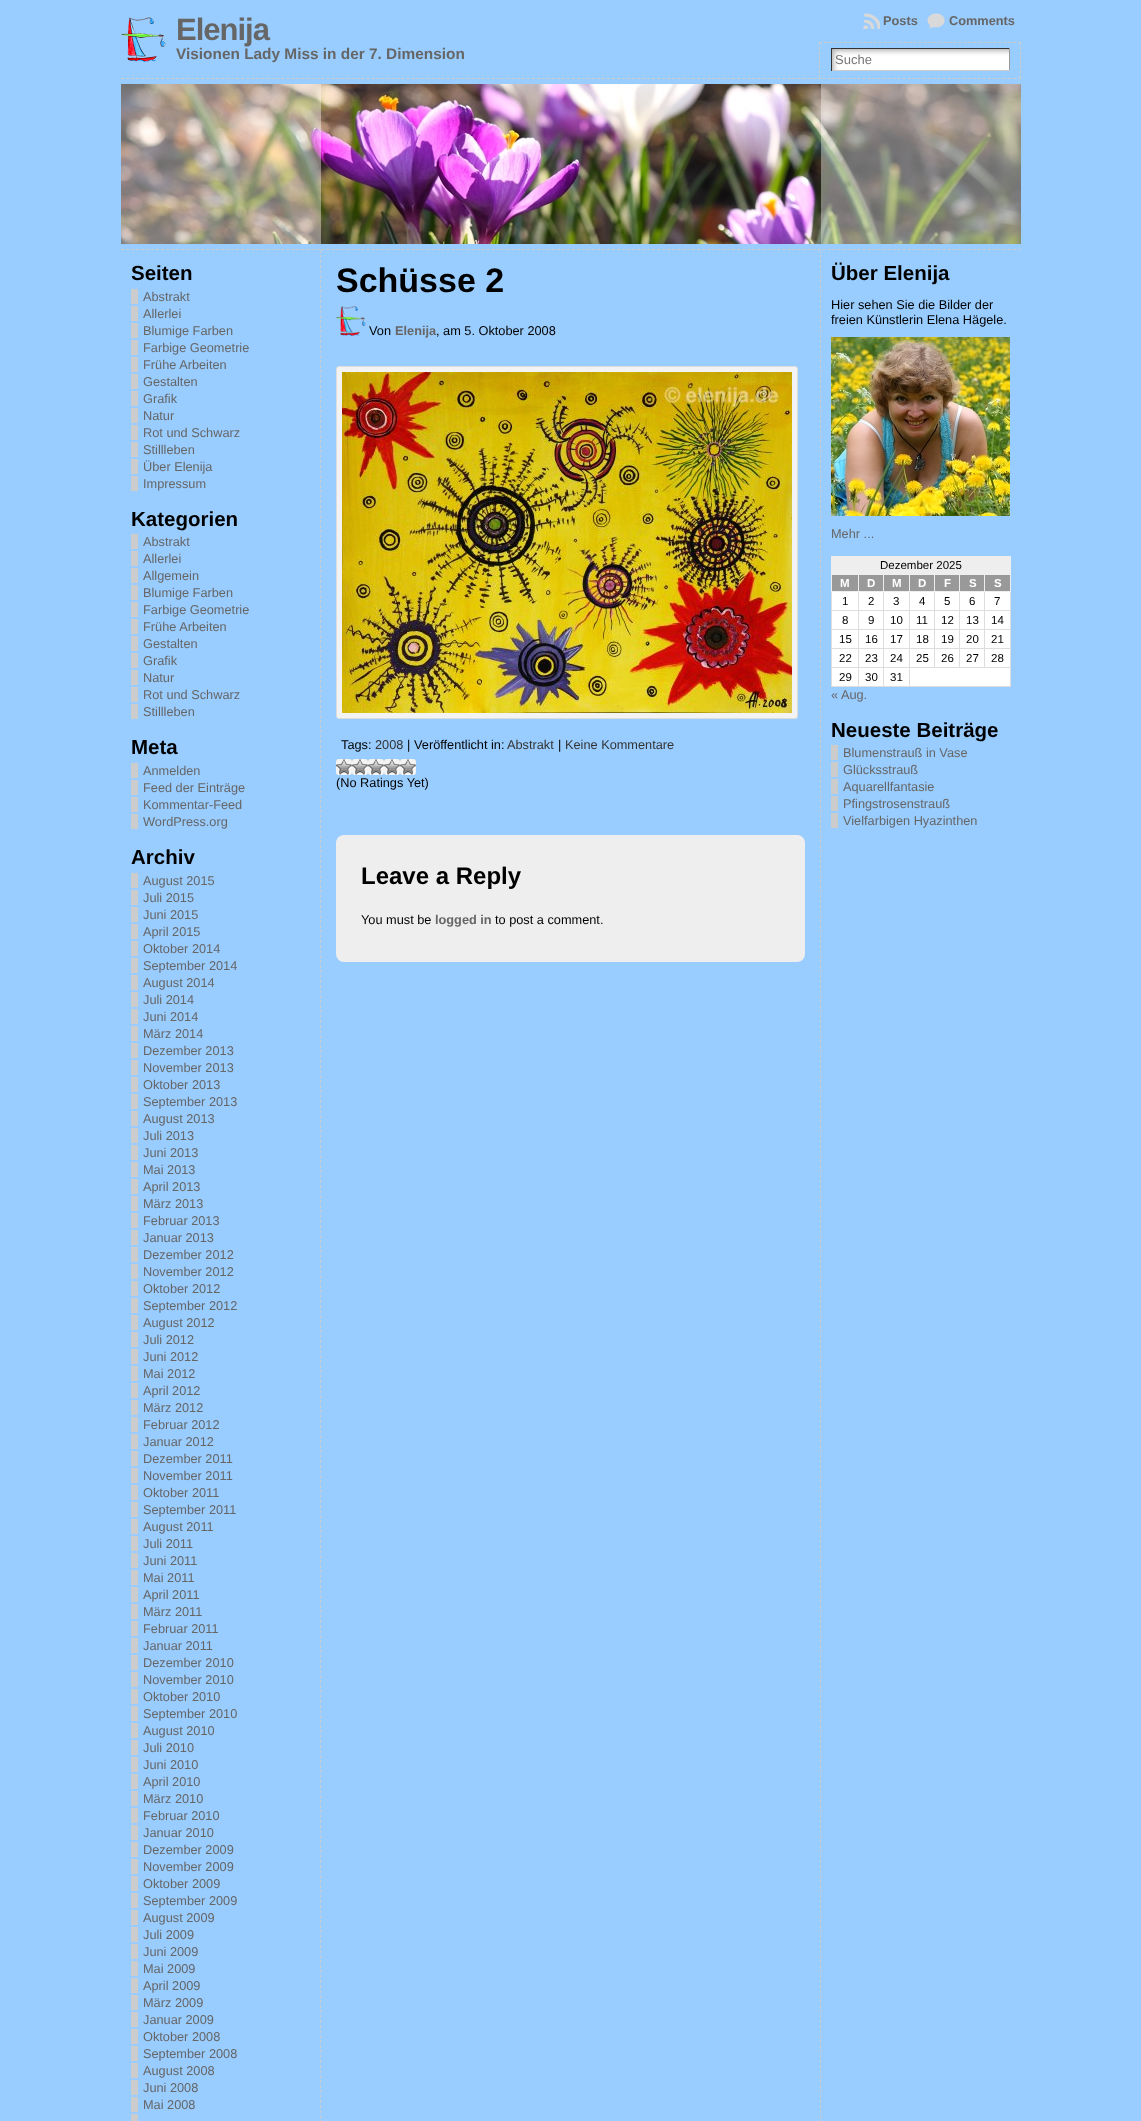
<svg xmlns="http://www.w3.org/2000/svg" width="1141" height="2121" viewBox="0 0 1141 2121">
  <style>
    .t1 { font: bold 31px Liberation Sans; letter-spacing: -1px; fill: #666; }
    .t2 { font: bold 15.4px Liberation Sans; fill: #666; }
    .t3 { font: bold 12.75px Liberation Sans; fill: #666; }
    .t4 { font: 13px Liberation Sans; fill: #777; }
    .t5 { font: bold 20.5px Liberation Sans; fill: #000; }
    .t6 { font: 12.75px Liberation Sans; fill: #666; }
    .t7 { font: bold 34px Liberation Sans; fill: #000; }
    .t8 { font: 12.75px Liberation Sans; fill: #000; }
    .t9 { font: 12.75px Liberation Sans; fill: #333; }
    .t10 { font: bold 24px Liberation Sans; fill: #000; }
    .t11 { font: 11.5px Liberation Sans; fill: #000; }
    .t12 { font: bold 11.5px Liberation Sans; fill: #fff; }
  </style>
  <rect width="100%" height="100%" fill="#9cf"/>
  <image x="121" y="17" width="45" height="45" href="images/1.png"/>
  <text x="176" y="40" class="t1">Elenija</text>
  <text x="176" y="59" class="t2">Visionen Lady Miss in der 7. Dimension</text>
  <image x="863" y="13" width="17" height="16" href="images/2.png"/>
  <text x="883" y="25" class="t3">Posts</text>
  <image x="927" y="13" width="18" height="16" href="images/3.png"/>
  <text x="949" y="25" class="t3">Comments</text>
  <path d="M819 42.5H1021" fill="none" stroke="#ccc" stroke-dasharray="3 1.98"/>
  <path d="M1020.5 42V78" fill="none" stroke="#ccc" stroke-dasharray="3 1.71"/>
  <path d="M819.5 42V78" fill="none" stroke="#ccc" stroke-dasharray="3 1.71"/>
  <image x="832" y="49" width="177" height="21" href="images/4.png"/>
  <rect x="831" y="48" width="179" height="1" fill="#333"/>
  <rect x="1009" y="48" width="1" height="23" fill="#999"/>
  <rect x="831" y="70" width="179" height="1" fill="#ccc"/>
  <rect x="831" y="48" width="1" height="23" fill="#333"/>
  <text x="835" y="64" class="t4">Suche</text>
  <path d="M121 78.5H1021" fill="none" stroke="#ccc" stroke-dasharray="3 2.01"/>
  <image x="121" y="84" width="900" height="160" href="images/5.png"/>
  <rect x="121" y="84" width="200" height="160" fill="#ffffff66"/>
  <rect x="821" y="84" width="200" height="160" fill="#ffffff66"/>
  <path d="M121 249.5H1021" fill="none" stroke="#ccc" stroke-dasharray="3 2.01"/>
  <path d="M320.5 250V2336" fill="none" stroke="#ccc" stroke-dasharray="3 2"/>
  <text x="131" y="280" class="t5">Seiten</text>
  <rect x="131" y="289" width="7" height="15" fill="#ccc"/>
  <text x="143" y="301" class="t6">Abstrakt</text>
  <rect x="131" y="306" width="7" height="15" fill="#ccc"/>
  <text x="143" y="318" class="t6">Allerlei</text>
  <rect x="131" y="323" width="7" height="15" fill="#ccc"/>
  <text x="143" y="335" class="t6">Blumige Farben</text>
  <rect x="131" y="340" width="7" height="15" fill="#ccc"/>
  <text x="143" y="352" class="t6">Farbige Geometrie</text>
  <rect x="131" y="357" width="7" height="15" fill="#ccc"/>
  <text x="143" y="369" class="t6">Frühe Arbeiten</text>
  <rect x="131" y="374" width="7" height="15" fill="#ccc"/>
  <text x="143" y="386" class="t6">Gestalten</text>
  <rect x="131" y="391" width="7" height="15" fill="#ccc"/>
  <text x="143" y="403" class="t6">Grafik</text>
  <rect x="131" y="408" width="7" height="15" fill="#ccc"/>
  <text x="143" y="420" class="t6">Natur</text>
  <rect x="131" y="425" width="7" height="15" fill="#ccc"/>
  <text x="143" y="437" class="t6">Rot und Schwarz</text>
  <rect x="131" y="442" width="7" height="15" fill="#ccc"/>
  <text x="143" y="454" class="t6">Stillleben</text>
  <rect x="131" y="459" width="7" height="15" fill="#ccc"/>
  <text x="143" y="471" class="t6">Über Elenija</text>
  <rect x="131" y="476" width="7" height="15" fill="#ccc"/>
  <text x="143" y="488" class="t6">Impressum</text>
  <text x="131" y="526" class="t5">Kategorien</text>
  <text x="143" y="546" class="t6">Abstrakt</text>
  <rect x="131" y="534" width="7" height="15" fill="#ccc"/>
  <text x="143" y="563" class="t6">Allerlei</text>
  <rect x="131" y="551" width="7" height="15" fill="#ccc"/>
  <text x="143" y="580" class="t6">Allgemein</text>
  <rect x="131" y="568" width="7" height="15" fill="#ccc"/>
  <text x="143" y="597" class="t6">Blumige Farben</text>
  <rect x="131" y="585" width="7" height="15" fill="#ccc"/>
  <text x="143" y="614" class="t6">Farbige Geometrie</text>
  <rect x="131" y="602" width="7" height="15" fill="#ccc"/>
  <text x="143" y="631" class="t6">Frühe Arbeiten</text>
  <rect x="131" y="619" width="7" height="15" fill="#ccc"/>
  <text x="143" y="648" class="t6">Gestalten</text>
  <rect x="131" y="636" width="7" height="15" fill="#ccc"/>
  <text x="143" y="665" class="t6">Grafik</text>
  <rect x="131" y="653" width="7" height="15" fill="#ccc"/>
  <text x="143" y="682" class="t6">Natur</text>
  <rect x="131" y="670" width="7" height="15" fill="#ccc"/>
  <text x="143" y="699" class="t6">Rot und Schwarz</text>
  <rect x="131" y="687" width="7" height="15" fill="#ccc"/>
  <text x="143" y="716" class="t6">Stillleben</text>
  <rect x="131" y="704" width="7" height="15" fill="#ccc"/>
  <text x="131" y="754" class="t5">Meta</text>
  <rect x="131" y="763" width="7" height="15" fill="#ccc"/>
  <text x="143" y="775" class="t6">Anmelden</text>
  <rect x="131" y="780" width="7" height="15" fill="#ccc"/>
  <text x="143" y="792" class="t6">Feed der Einträge</text>
  <rect x="131" y="797" width="7" height="15" fill="#ccc"/>
  <text x="143" y="809" class="t6">Kommentar-Feed</text>
  <rect x="131" y="814" width="7" height="15" fill="#ccc"/>
  <text x="143" y="826" class="t6">WordPress.org</text>
  <text x="131" y="864" class="t5">Archiv</text>
  <rect x="131" y="873" width="7" height="15" fill="#ccc"/>
  <text x="143" y="885" class="t6">August 2015</text>
  <rect x="131" y="890" width="7" height="15" fill="#ccc"/>
  <text x="143" y="902" class="t6">Juli 2015</text>
  <rect x="131" y="907" width="7" height="15" fill="#ccc"/>
  <text x="143" y="919" class="t6">Juni 2015</text>
  <rect x="131" y="924" width="7" height="15" fill="#ccc"/>
  <text x="143" y="936" class="t6">April 2015</text>
  <rect x="131" y="941" width="7" height="15" fill="#ccc"/>
  <text x="143" y="953" class="t6">Oktober 2014</text>
  <rect x="131" y="958" width="7" height="15" fill="#ccc"/>
  <text x="143" y="970" class="t6">September 2014</text>
  <rect x="131" y="975" width="7" height="15" fill="#ccc"/>
  <text x="143" y="987" class="t6">August 2014</text>
  <rect x="131" y="992" width="7" height="15" fill="#ccc"/>
  <text x="143" y="1004" class="t6">Juli 2014</text>
  <rect x="131" y="1009" width="7" height="15" fill="#ccc"/>
  <text x="143" y="1021" class="t6">Juni 2014</text>
  <rect x="131" y="1026" width="7" height="15" fill="#ccc"/>
  <text x="143" y="1038" class="t6">März 2014</text>
  <rect x="131" y="1043" width="7" height="15" fill="#ccc"/>
  <text x="143" y="1055" class="t6">Dezember 2013</text>
  <rect x="131" y="1060" width="7" height="15" fill="#ccc"/>
  <text x="143" y="1072" class="t6">November 2013</text>
  <rect x="131" y="1077" width="7" height="15" fill="#ccc"/>
  <text x="143" y="1089" class="t6">Oktober 2013</text>
  <rect x="131" y="1094" width="7" height="15" fill="#ccc"/>
  <text x="143" y="1106" class="t6">September 2013</text>
  <rect x="131" y="1111" width="7" height="15" fill="#ccc"/>
  <text x="143" y="1123" class="t6">August 2013</text>
  <rect x="131" y="1128" width="7" height="15" fill="#ccc"/>
  <text x="143" y="1140" class="t6">Juli 2013</text>
  <rect x="131" y="1145" width="7" height="15" fill="#ccc"/>
  <text x="143" y="1157" class="t6">Juni 2013</text>
  <rect x="131" y="1162" width="7" height="15" fill="#ccc"/>
  <text x="143" y="1174" class="t6">Mai 2013</text>
  <rect x="131" y="1179" width="7" height="15" fill="#ccc"/>
  <text x="143" y="1191" class="t6">April 2013</text>
  <rect x="131" y="1196" width="7" height="15" fill="#ccc"/>
  <text x="143" y="1208" class="t6">März 2013</text>
  <rect x="131" y="1213" width="7" height="15" fill="#ccc"/>
  <text x="143" y="1225" class="t6">Februar 2013</text>
  <rect x="131" y="1230" width="7" height="15" fill="#ccc"/>
  <text x="143" y="1242" class="t6">Januar 2013</text>
  <rect x="131" y="1247" width="7" height="15" fill="#ccc"/>
  <text x="143" y="1259" class="t6">Dezember 2012</text>
  <rect x="131" y="1264" width="7" height="15" fill="#ccc"/>
  <text x="143" y="1276" class="t6">November 2012</text>
  <rect x="131" y="1281" width="7" height="15" fill="#ccc"/>
  <text x="143" y="1293" class="t6">Oktober 2012</text>
  <rect x="131" y="1298" width="7" height="15" fill="#ccc"/>
  <text x="143" y="1310" class="t6">September 2012</text>
  <rect x="131" y="1315" width="7" height="15" fill="#ccc"/>
  <text x="143" y="1327" class="t6">August 2012</text>
  <rect x="131" y="1332" width="7" height="15" fill="#ccc"/>
  <text x="143" y="1344" class="t6">Juli 2012</text>
  <rect x="131" y="1349" width="7" height="15" fill="#ccc"/>
  <text x="143" y="1361" class="t6">Juni 2012</text>
  <rect x="131" y="1366" width="7" height="15" fill="#ccc"/>
  <text x="143" y="1378" class="t6">Mai 2012</text>
  <rect x="131" y="1383" width="7" height="15" fill="#ccc"/>
  <text x="143" y="1395" class="t6">April 2012</text>
  <rect x="131" y="1400" width="7" height="15" fill="#ccc"/>
  <text x="143" y="1412" class="t6">März 2012</text>
  <rect x="131" y="1417" width="7" height="15" fill="#ccc"/>
  <text x="143" y="1429" class="t6">Februar 2012</text>
  <rect x="131" y="1434" width="7" height="15" fill="#ccc"/>
  <text x="143" y="1446" class="t6">Januar 2012</text>
  <rect x="131" y="1451" width="7" height="15" fill="#ccc"/>
  <text x="143" y="1463" class="t6">Dezember 2011</text>
  <rect x="131" y="1468" width="7" height="15" fill="#ccc"/>
  <text x="143" y="1480" class="t6">November 2011</text>
  <rect x="131" y="1485" width="7" height="15" fill="#ccc"/>
  <text x="143" y="1497" class="t6">Oktober 2011</text>
  <rect x="131" y="1502" width="7" height="15" fill="#ccc"/>
  <text x="143" y="1514" class="t6">September 2011</text>
  <rect x="131" y="1519" width="7" height="15" fill="#ccc"/>
  <text x="143" y="1531" class="t6">August 2011</text>
  <rect x="131" y="1536" width="7" height="15" fill="#ccc"/>
  <text x="143" y="1548" class="t6">Juli 2011</text>
  <rect x="131" y="1553" width="7" height="15" fill="#ccc"/>
  <text x="143" y="1565" class="t6">Juni 2011</text>
  <rect x="131" y="1570" width="7" height="15" fill="#ccc"/>
  <text x="143" y="1582" class="t6">Mai 2011</text>
  <rect x="131" y="1587" width="7" height="15" fill="#ccc"/>
  <text x="143" y="1599" class="t6">April 2011</text>
  <rect x="131" y="1604" width="7" height="15" fill="#ccc"/>
  <text x="143" y="1616" class="t6">März 2011</text>
  <rect x="131" y="1621" width="7" height="15" fill="#ccc"/>
  <text x="143" y="1633" class="t6">Februar 2011</text>
  <rect x="131" y="1638" width="7" height="15" fill="#ccc"/>
  <text x="143" y="1650" class="t6">Januar 2011</text>
  <rect x="131" y="1655" width="7" height="15" fill="#ccc"/>
  <text x="143" y="1667" class="t6">Dezember 2010</text>
  <rect x="131" y="1672" width="7" height="15" fill="#ccc"/>
  <text x="143" y="1684" class="t6">November 2010</text>
  <rect x="131" y="1689" width="7" height="15" fill="#ccc"/>
  <text x="143" y="1701" class="t6">Oktober 2010</text>
  <rect x="131" y="1706" width="7" height="15" fill="#ccc"/>
  <text x="143" y="1718" class="t6">September 2010</text>
  <rect x="131" y="1723" width="7" height="15" fill="#ccc"/>
  <text x="143" y="1735" class="t6">August 2010</text>
  <rect x="131" y="1740" width="7" height="15" fill="#ccc"/>
  <text x="143" y="1752" class="t6">Juli 2010</text>
  <rect x="131" y="1757" width="7" height="15" fill="#ccc"/>
  <text x="143" y="1769" class="t6">Juni 2010</text>
  <rect x="131" y="1774" width="7" height="15" fill="#ccc"/>
  <text x="143" y="1786" class="t6">April 2010</text>
  <rect x="131" y="1791" width="7" height="15" fill="#ccc"/>
  <text x="143" y="1803" class="t6">März 2010</text>
  <rect x="131" y="1808" width="7" height="15" fill="#ccc"/>
  <text x="143" y="1820" class="t6">Februar 2010</text>
  <rect x="131" y="1825" width="7" height="15" fill="#ccc"/>
  <text x="143" y="1837" class="t6">Januar 2010</text>
  <rect x="131" y="1842" width="7" height="15" fill="#ccc"/>
  <text x="143" y="1854" class="t6">Dezember 2009</text>
  <rect x="131" y="1859" width="7" height="15" fill="#ccc"/>
  <text x="143" y="1871" class="t6">November 2009</text>
  <rect x="131" y="1876" width="7" height="15" fill="#ccc"/>
  <text x="143" y="1888" class="t6">Oktober 2009</text>
  <rect x="131" y="1893" width="7" height="15" fill="#ccc"/>
  <text x="143" y="1905" class="t6">September 2009</text>
  <rect x="131" y="1910" width="7" height="15" fill="#ccc"/>
  <text x="143" y="1922" class="t6">August 2009</text>
  <rect x="131" y="1927" width="7" height="15" fill="#ccc"/>
  <text x="143" y="1939" class="t6">Juli 2009</text>
  <rect x="131" y="1944" width="7" height="15" fill="#ccc"/>
  <text x="143" y="1956" class="t6">Juni 2009</text>
  <rect x="131" y="1961" width="7" height="15" fill="#ccc"/>
  <text x="143" y="1973" class="t6">Mai 2009</text>
  <rect x="131" y="1978" width="7" height="15" fill="#ccc"/>
  <text x="143" y="1990" class="t6">April 2009</text>
  <rect x="131" y="1995" width="7" height="15" fill="#ccc"/>
  <text x="143" y="2007" class="t6">März 2009</text>
  <rect x="131" y="2012" width="7" height="15" fill="#ccc"/>
  <text x="143" y="2024" class="t6">Januar 2009</text>
  <rect x="131" y="2029" width="7" height="15" fill="#ccc"/>
  <text x="143" y="2041" class="t6">Oktober 2008</text>
  <rect x="131" y="2046" width="7" height="15" fill="#ccc"/>
  <text x="143" y="2058" class="t6">September 2008</text>
  <rect x="131" y="2063" width="7" height="15" fill="#ccc"/>
  <text x="143" y="2075" class="t6">August 2008</text>
  <rect x="131" y="2080" width="7" height="15" fill="#ccc"/>
  <text x="143" y="2092" class="t6">Juni 2008</text>
  <rect x="131" y="2097" width="7" height="15" fill="#ccc"/>
  <text x="143" y="2109" class="t6">Mai 2008</text>
  <rect x="131" y="2114" width="7" height="7" fill="#ccc"/>
  <text x="336" y="292" class="t7">Schüsse 2</text>
  <image x="336" y="306" width="30" height="30" href="images/6.png"/>
  <text x="369" y="335" class="t8">Von</text>
  <text x="395" y="335" class="t3">Elenija</text>
  <text x="436" y="335" class="t8">, am 5. Oktober 2008</text>
  <rect x="336.5" y="366.5" width="461" height="352" rx="2.5" fill="#f3f3f3" stroke="#ddd"/>
  <image x="342" y="372" width="450" height="341" href="images/7.png"/>
  <text x="341" y="749" class="t8">Tags:</text>
  <text x="375" y="749" class="t9">2008</text>
  <text x="407" y="749" class="t8">|</text>
  <text x="414" y="749" class="t8">Veröffentlicht in:</text>
  <text x="507" y="749" class="t9">Abstrakt</text>
  <text x="558" y="749" class="t8">|</text>
  <text x="565" y="749" class="t9">Keine Kommentare</text>
  <rect x="336" y="759" width="16" height="16" rx="3" fill="#f3f3f3"/>
  <image x="336" y="759" width="16" height="16" href="images/8.png"/>
  <rect x="352" y="759" width="16" height="16" rx="3" fill="#f3f3f3"/>
  <image x="352" y="759" width="16" height="16" href="images/8.png"/>
  <rect x="368" y="759" width="16" height="16" rx="3" fill="#f3f3f3"/>
  <image x="368" y="759" width="16" height="16" href="images/8.png"/>
  <rect x="384" y="759" width="16" height="16" rx="3" fill="#f3f3f3"/>
  <image x="384" y="759" width="16" height="16" href="images/8.png"/>
  <rect x="400" y="759" width="16" height="16" rx="3" fill="#f3f3f3"/>
  <image x="400" y="759" width="16" height="16" href="images/8.png"/>
  <text x="336" y="787" class="t8">(No Ratings Yet)</text>
  <rect x="336" y="835" width="469" height="127" rx="8" fill="#eee"/>
  <text x="361" y="884" class="t10">Leave a Reply</text>
  <text x="361" y="924" class="t8">You must be</text>
  <text x="435" y="924" class="t3">logged in</text>
  <text x="495" y="924" class="t8">to post a comment.</text>
  <path d="M820.5 250V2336" fill="none" stroke="#ccc" stroke-dasharray="3 2"/>
  <text x="831" y="280" class="t5">Über Elenija</text>
  <text x="831" y="309" class="t8">Hier sehen Sie die Bilder der</text>
  <text x="831" y="324" class="t8">freien Künstlerin Elena Hägele.</text>
  <image x="831" y="337" width="179" height="179" href="images/9.png"/>
  <text x="831" y="538" class="t6">Mehr ...</text>
  <rect x="832" y="592" width="178" height="94" fill="#fff"/>
  <rect x="831" y="556" width="180" height="18" fill="#eee"/>
  <text x="880" y="569" class="t11">Dezember 2025</text>
  <rect x="832" y="575" width="26" height="16" fill="#999"/>
  <rect x="984" y="574" width="27" height="1" fill="#eee"/>
  <rect x="984" y="610" width="27" height="1" fill="#ddd"/>
  <rect x="984" y="629" width="27" height="1" fill="#ddd"/>
  <rect x="984" y="648" width="27" height="1" fill="#ddd"/>
  <rect x="909" y="667" width="102" height="1" fill="#ddd"/>
  <rect x="1010" y="667" width="1" height="20" fill="#ddd"/>
  <rect x="1010" y="648" width="1" height="20" fill="#ddd"/>
  <rect x="1010" y="629" width="1" height="20" fill="#ddd"/>
  <rect x="1010" y="591" width="1" height="39" fill="#ddd"/>
  <rect x="1010" y="574" width="1" height="18" fill="#eee"/>
  <rect x="984" y="648" width="1" height="20" fill="#ddd"/>
  <rect x="959" y="648" width="26" height="1" fill="#ddd"/>
  <rect x="984" y="629" width="1" height="20" fill="#ddd"/>
  <rect x="959" y="629" width="26" height="1" fill="#ddd"/>
  <rect x="984" y="610" width="1" height="20" fill="#ddd"/>
  <rect x="959" y="610" width="26" height="1" fill="#ddd"/>
  <rect x="984" y="591" width="1" height="20" fill="#ddd"/>
  <rect x="984" y="591" width="27" height="1" fill="#eee"/>
  <rect x="984" y="574" width="1" height="18" fill="#eee"/>
  <rect x="959" y="574" width="26" height="1" fill="#eee"/>
  <rect x="959" y="648" width="1" height="20" fill="#ddd"/>
  <rect x="934" y="648" width="26" height="1" fill="#ddd"/>
  <rect x="959" y="629" width="1" height="20" fill="#ddd"/>
  <rect x="934" y="629" width="26" height="1" fill="#ddd"/>
  <rect x="959" y="610" width="1" height="20" fill="#ddd"/>
  <rect x="934" y="610" width="26" height="1" fill="#ddd"/>
  <rect x="959" y="591" width="1" height="20" fill="#ddd"/>
  <rect x="959" y="591" width="26" height="1" fill="#eee"/>
  <rect x="959" y="574" width="1" height="18" fill="#eee"/>
  <rect x="934" y="574" width="26" height="1" fill="#eee"/>
  <rect x="934" y="648" width="1" height="20" fill="#ddd"/>
  <rect x="909" y="648" width="26" height="1" fill="#ddd"/>
  <rect x="934" y="629" width="1" height="20" fill="#ddd"/>
  <rect x="909" y="629" width="26" height="1" fill="#ddd"/>
  <rect x="934" y="610" width="1" height="20" fill="#ddd"/>
  <rect x="909" y="610" width="26" height="1" fill="#ddd"/>
  <rect x="934" y="591" width="1" height="20" fill="#ddd"/>
  <rect x="934" y="591" width="26" height="1" fill="#eee"/>
  <rect x="934" y="574" width="1" height="18" fill="#eee"/>
  <rect x="909" y="574" width="26" height="1" fill="#eee"/>
  <rect x="909" y="686" width="102" height="1" fill="#ddd"/>
  <rect x="909" y="667" width="1" height="20" fill="#ddd"/>
  <rect x="883" y="667" width="27" height="1" fill="#ddd"/>
  <rect x="909" y="648" width="1" height="20" fill="#ddd"/>
  <rect x="883" y="648" width="27" height="1" fill="#ddd"/>
  <rect x="909" y="629" width="1" height="20" fill="#ddd"/>
  <rect x="883" y="629" width="27" height="1" fill="#ddd"/>
  <rect x="909" y="610" width="1" height="20" fill="#ddd"/>
  <rect x="883" y="610" width="27" height="1" fill="#ddd"/>
  <rect x="909" y="591" width="1" height="20" fill="#ddd"/>
  <rect x="909" y="591" width="26" height="1" fill="#eee"/>
  <rect x="909" y="574" width="1" height="18" fill="#eee"/>
  <rect x="883" y="574" width="27" height="1" fill="#eee"/>
  <rect x="883" y="686" width="27" height="1" fill="#ddd"/>
  <rect x="883" y="667" width="1" height="20" fill="#ddd"/>
  <rect x="858" y="667" width="26" height="1" fill="#ddd"/>
  <rect x="883" y="648" width="1" height="20" fill="#ddd"/>
  <rect x="858" y="648" width="26" height="1" fill="#ddd"/>
  <rect x="883" y="629" width="1" height="20" fill="#ddd"/>
  <rect x="858" y="629" width="26" height="1" fill="#ddd"/>
  <rect x="883" y="610" width="1" height="20" fill="#ddd"/>
  <rect x="858" y="610" width="26" height="1" fill="#ddd"/>
  <rect x="883" y="591" width="1" height="20" fill="#ddd"/>
  <rect x="883" y="591" width="27" height="1" fill="#eee"/>
  <rect x="883" y="574" width="1" height="18" fill="#eee"/>
  <rect x="858" y="574" width="26" height="1" fill="#eee"/>
  <rect x="858" y="686" width="26" height="1" fill="#ddd"/>
  <rect x="858" y="667" width="1" height="20" fill="#ddd"/>
  <rect x="831" y="667" width="28" height="1" fill="#ddd"/>
  <rect x="858" y="648" width="1" height="20" fill="#ddd"/>
  <rect x="831" y="648" width="28" height="1" fill="#ddd"/>
  <rect x="858" y="629" width="1" height="20" fill="#ddd"/>
  <rect x="831" y="629" width="28" height="1" fill="#ddd"/>
  <rect x="858" y="610" width="1" height="20" fill="#ddd"/>
  <rect x="831" y="610" width="28" height="1" fill="#ddd"/>
  <rect x="858" y="591" width="1" height="20" fill="#ddd"/>
  <rect x="858" y="591" width="26" height="1" fill="#eee"/>
  <rect x="858" y="574" width="1" height="18" fill="#eee"/>
  <rect x="831" y="574" width="28" height="1" fill="#eee"/>
  <rect x="831" y="686" width="28" height="1" fill="#ddd"/>
  <rect x="831" y="667" width="1" height="20" fill="#ddd"/>
  <rect x="831" y="648" width="1" height="20" fill="#ddd"/>
  <rect x="831" y="629" width="1" height="20" fill="#ddd"/>
  <rect x="831" y="591" width="1" height="39" fill="#ddd"/>
  <rect x="831" y="591" width="28" height="1" fill="#eee"/>
  <rect x="831" y="574" width="1" height="18" fill="#eee"/>
  <text x="840" y="587" class="t12">M</text>
  <rect x="859" y="575" width="24" height="16" fill="#999"/>
  <text x="867" y="587" class="t12">D</text>
  <rect x="884" y="575" width="25" height="16" fill="#999"/>
  <text x="892" y="587" class="t12">M</text>
  <rect x="910" y="575" width="24" height="16" fill="#999"/>
  <text x="918" y="587" class="t12">D</text>
  <rect x="935" y="575" width="24" height="16" fill="#999"/>
  <text x="944" y="587" class="t12">F</text>
  <rect x="960" y="575" width="24" height="16" fill="#999"/>
  <text x="969" y="587" class="t12">S</text>
  <rect x="985" y="575" width="25" height="16" fill="#999"/>
  <text x="994" y="587" class="t12">S</text>
  <text x="842" y="605" class="t11">1</text>
  <text x="868" y="605" class="t11">2</text>
  <text x="893" y="605" class="t11">3</text>
  <text x="919" y="605" class="t11">4</text>
  <text x="944" y="605" class="t11">5</text>
  <text x="969" y="605" class="t11">6</text>
  <text x="994" y="605" class="t11">7</text>
  <text x="842" y="624" class="t11">8</text>
  <text x="868" y="624" class="t11">9</text>
  <text x="890" y="624" class="t11">10</text>
  <text x="916" y="624" class="t11">11</text>
  <text x="941" y="624" class="t11">12</text>
  <text x="966" y="624" class="t11">13</text>
  <text x="991" y="624" class="t11">14</text>
  <text x="839" y="643" class="t11">15</text>
  <text x="865" y="643" class="t11">16</text>
  <text x="890" y="643" class="t11">17</text>
  <text x="916" y="643" class="t11">18</text>
  <text x="941" y="643" class="t11">19</text>
  <text x="966" y="643" class="t11">20</text>
  <text x="991" y="643" class="t11">21</text>
  <text x="839" y="662" class="t11">22</text>
  <text x="865" y="662" class="t11">23</text>
  <text x="890" y="662" class="t11">24</text>
  <text x="916" y="662" class="t11">25</text>
  <text x="941" y="662" class="t11">26</text>
  <text x="966" y="662" class="t11">27</text>
  <text x="991" y="662" class="t11">28</text>
  <text x="839" y="681" class="t11">29</text>
  <text x="865" y="681" class="t11">30</text>
  <text x="890" y="681" class="t11">31</text>
  <text x="831" y="699" class="t6">« Aug.</text>
  <text x="831" y="737" class="t5">Neueste Beiträge</text>
  <rect x="831" y="745" width="7" height="15" fill="#ccc"/>
  <text x="843" y="757" class="t6">Blumenstrauß in Vase</text>
  <rect x="831" y="762" width="7" height="15" fill="#ccc"/>
  <text x="843" y="774" class="t6">Glücksstrauß</text>
  <rect x="831" y="779" width="7" height="15" fill="#ccc"/>
  <text x="843" y="791" class="t6">Aquarellfantasie</text>
  <rect x="831" y="796" width="7" height="15" fill="#ccc"/>
  <text x="843" y="808" class="t6">Pfingstrosenstrauß</text>
  <rect x="831" y="813" width="7" height="15" fill="#ccc"/>
  <text x="843" y="825" class="t6">Vielfarbigen Hyazinthen</text>
</svg>
